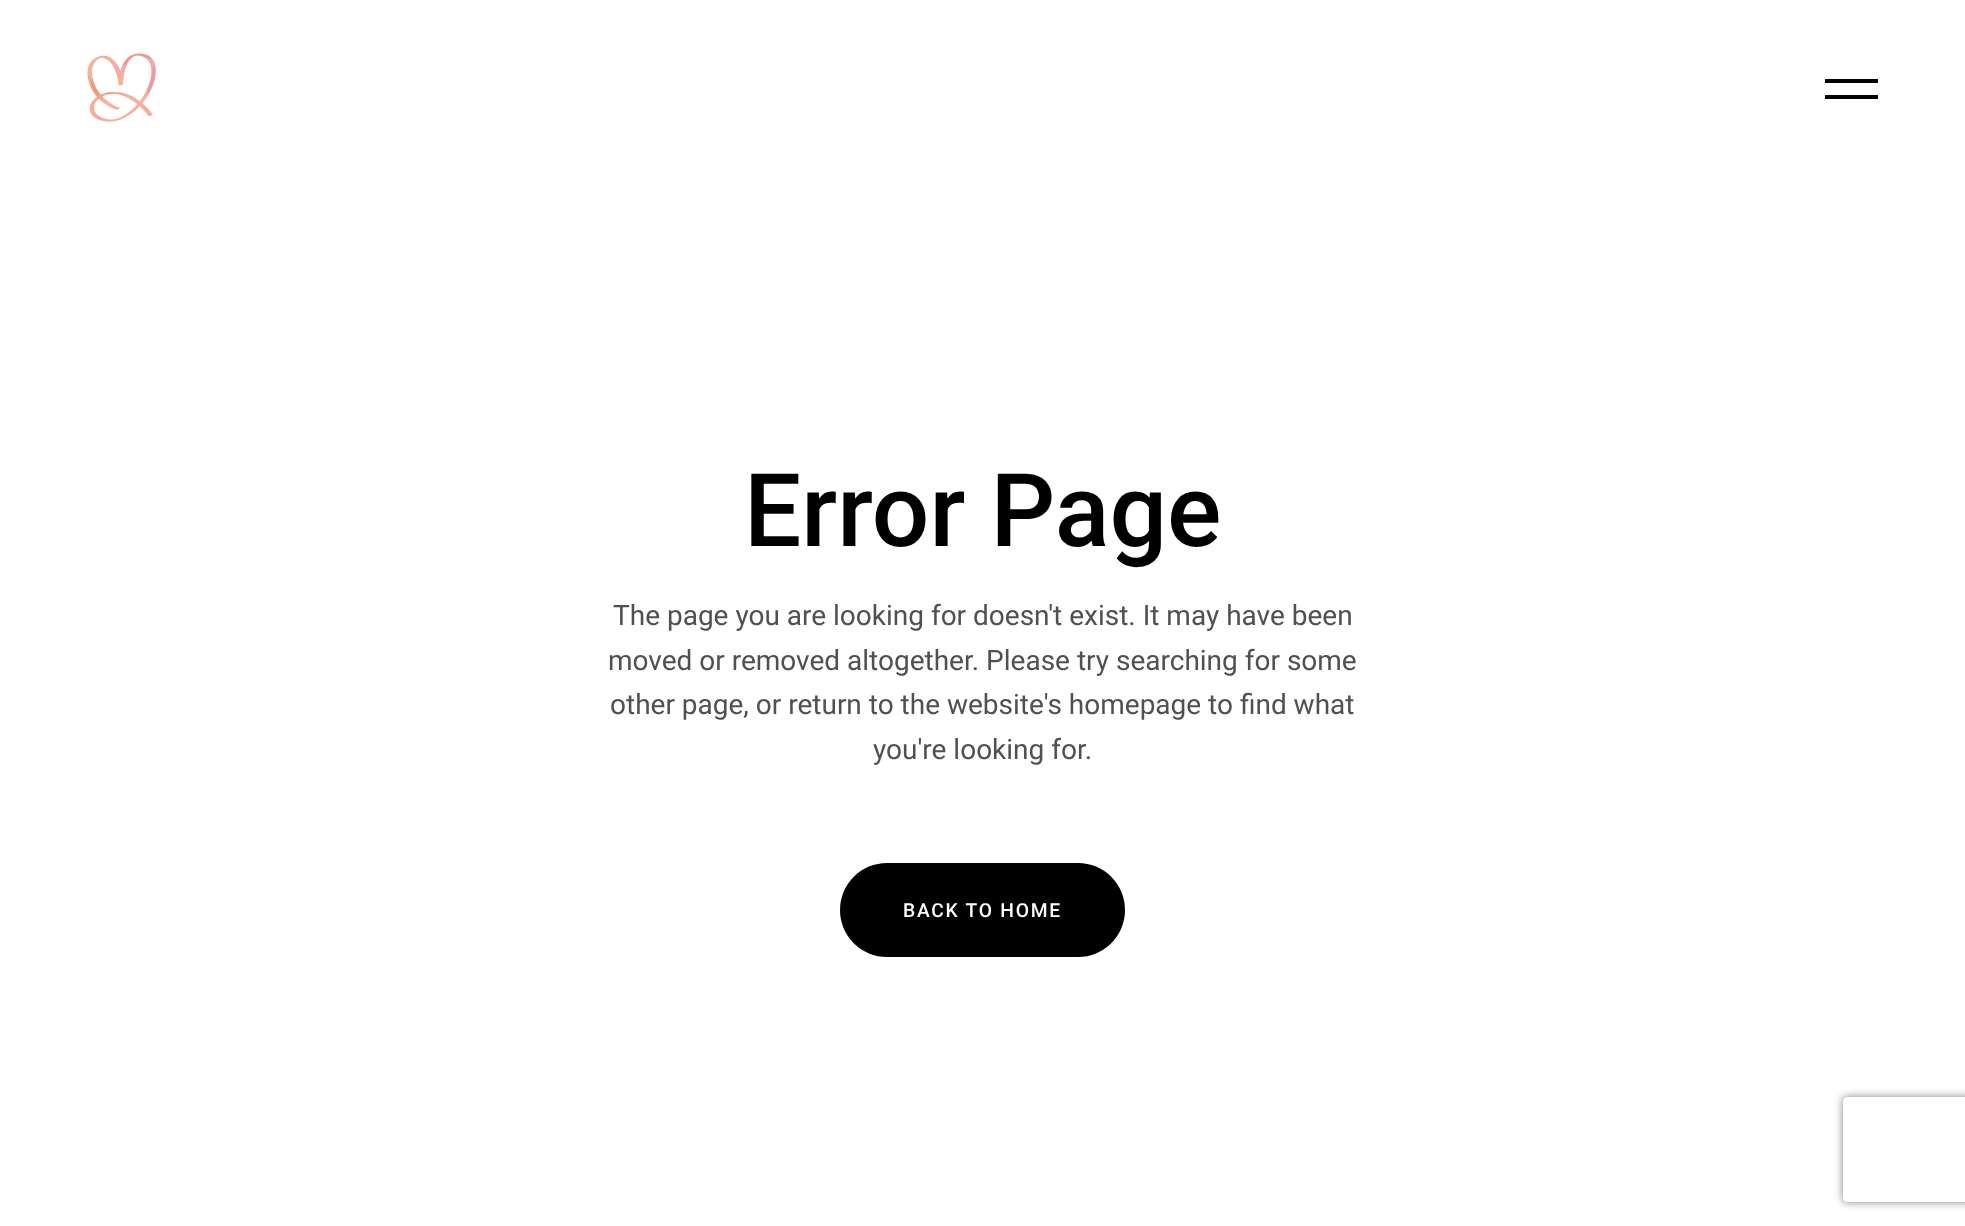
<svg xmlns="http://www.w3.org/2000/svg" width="1965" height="1226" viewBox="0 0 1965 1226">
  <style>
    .t1 { font: 500 101.5px Roboto; fill: #000; }
    .t2 { font: 28px Roboto; fill: #505050; }
    .t3 { font: 500 19.25px Roboto; letter-spacing: 1.75px; fill: #fff; }
  </style>
  <defs>
    <clipPath id="clip1"><path d="M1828 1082H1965V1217H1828ZM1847 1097H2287C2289 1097 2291 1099 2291 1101V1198C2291 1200 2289 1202 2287 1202H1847C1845 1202 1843 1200 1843 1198V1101C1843 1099 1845 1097 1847 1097Z" clip-rule="evenodd"/></clipPath>
  </defs>
  <rect width="100%" height="100%" fill="#fff"/>
  <image x="87" y="53" width="69" height="69" href="images/1.png"/>
  <rect x="1825" y="79" width="53" height="4" fill="#000"/>
  <rect x="1825" y="95" width="53" height="4" fill="#000"/>
  <text x="744" y="546" class="t1">Error Page</text>
  <text x="613" y="625" class="t2">The page you are looking for doesn't exist. It may have been</text>
  <text x="608" y="670" class="t2">moved or removed altogether. Please try searching for some</text>
  <text x="610" y="714" class="t2">other page, or return to the website's homepage to find what</text>
  <text x="873" y="759" class="t2">you're looking for.</text>
  <rect x="840" y="863" width="285" height="94" rx="47" fill="#000"/>
  <text x="903" y="917" class="t3">BACK TO HOME</text>
  <g clip-path="url(#clip1)">
    <rect x="1843" y="1097" width="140" height="105" rx="4" fill="#808080" filter="blur(4.5px)"/>
  </g>
</svg>
